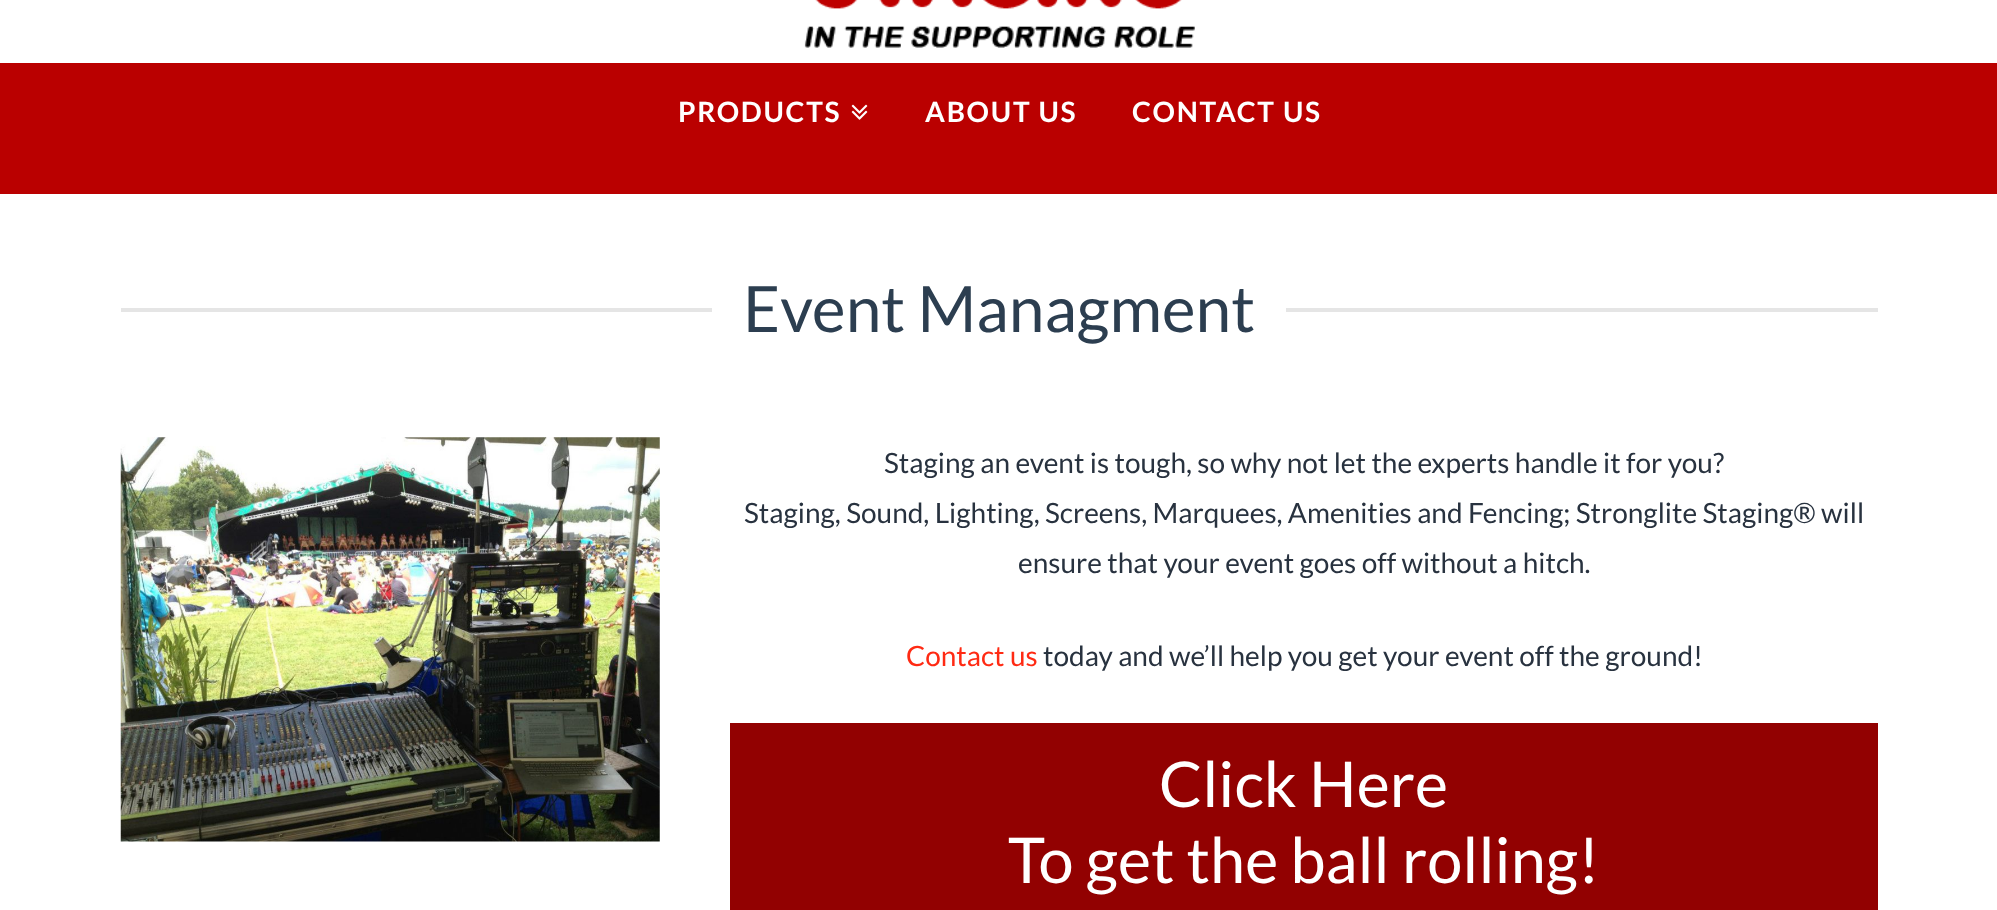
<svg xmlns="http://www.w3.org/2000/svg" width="1997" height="910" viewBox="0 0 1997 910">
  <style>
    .t1 { font: bold 28px Lato; letter-spacing: 1.75px; fill: #fff; }
    .t2 { font: 64px Lato; fill: #2c3e50; }
    .t3 { font: 28px Lato; fill: #28323f; }
    .t4 { font: 28px Lato; fill: #ff2a13; }
    .t5 { font: 63px Lato; fill: #fff; }
  </style>
  <rect width="100%" height="100%" fill="#fff"/>
  <image x="804" y="0" width="391" height="48" href="images/1.png"/>
  <rect x="0" y="63" width="1997" height="131" fill="#ba0000"/>
  <text x="678" y="122" class="t1">PRODUCTS</text>
  <image x="851" y="104" width="17" height="16" href="images/2.png"/>
  <text x="925" y="122" class="t1">ABOUT US</text>
  <text x="1132" y="122" class="t1">CONTACT US</text>
  <rect x="121" y="308" width="591" height="4" fill="#e5e5e5"/>
  <text x="743" y="332" class="t2">Event Managment</text>
  <rect x="1286" y="308" width="592" height="4" fill="#e5e5e5"/>
  <image x="120" y="437" width="540" height="405" href="images/3.png"/>
  <text x="884" y="473" class="t3">Staging an event is tough, so why not let the experts handle it for you?</text>
  <text x="744" y="523" class="t3">Staging, Sound, Lighting, Screens, Marquees, Amenities and Fencing; Stronglite Staging® will</text>
  <text x="1018" y="573" class="t3">ensure that your event goes off without a hitch.</text>
  <text x="906" y="666" class="t4">Contact us</text>
  <text x="1043" y="666" class="t3">today and we’ll help you get your event off the ground!</text>
  <rect x="730" y="723" width="1148" height="187" fill="#920101"/>
  <text x="1159" y="807" class="t5">Click Here</text>
  <text x="1008" y="883" class="t5">To get the ball rolling!</text>
</svg>
